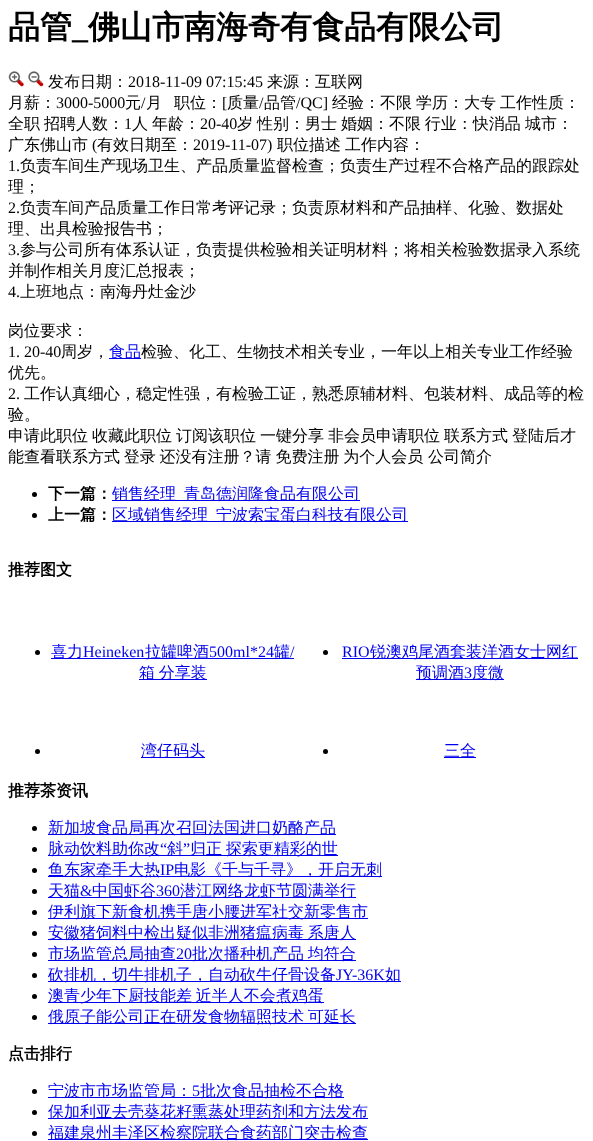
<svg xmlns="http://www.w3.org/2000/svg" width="593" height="1141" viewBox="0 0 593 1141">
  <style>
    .t1 { font: bold 32px WenQuanYi Zen Hei; fill: #000; }
    .t2 { font: bold 32px Liberation Serif; fill: #000; }
    .t3 { font: 500 16px WenQuanYi Zen Hei; fill: #000; }
    .t4 { font: 16px Liberation Serif; fill: #000; }
    .t5 { font: 500 16px WenQuanYi Zen Hei; fill: #00e; }
    .t6 { font: bold 16px WenQuanYi Zen Hei; fill: #000; }
    .t7 { font: 16px Liberation Serif; fill: #00e; }
  </style>
  <rect width="100%" height="100%" fill="#fff"/>
  <text x="8" y="38" class="t1">品管</text>
  <text x="72" y="38" class="t2">_</text>
  <text x="88" y="38" class="t1">佛山市南海奇有食品有限公司</text>
  <image x="8" y="71" width="16" height="16" href="images/1.png"/>
  <image x="28" y="71" width="16" height="16" href="images/2.png"/>
  <text x="48" y="87" class="t3">发布日期：</text>
  <text x="128" y="87" class="t4">2018-11-09 07:15:45</text>
  <text x="267" y="87" class="t3">来源：互联网</text>
  <text x="8" y="108" class="t3">月薪：</text>
  <text x="56" y="108" class="t4">3000-5000</text>
  <text x="125" y="108" class="t3">元</text>
  <text x="141" y="108" class="t4">/</text>
  <text x="146" y="108" class="t3">月</text>
  <text x="174" y="108" class="t3">职位：</text>
  <text x="222" y="108" class="t4">[</text>
  <text x="227" y="108" class="t3">质量</text>
  <text x="259" y="108" class="t4">/</text>
  <text x="264" y="108" class="t3">品管</text>
  <text x="296" y="108" class="t4">/QC]</text>
  <text x="332" y="108" class="t3">经验：不限</text>
  <text x="416" y="108" class="t3">学历：大专</text>
  <text x="500" y="108" class="t3">工作性质：</text>
  <text x="8" y="129" class="t3">全职</text>
  <text x="44" y="129" class="t3">招聘人数：</text>
  <text x="124" y="129" class="t4">1</text>
  <text x="132" y="129" class="t3">人</text>
  <text x="152" y="129" class="t3">年龄：</text>
  <text x="200" y="129" class="t4">20-40</text>
  <text x="237" y="129" class="t3">岁</text>
  <text x="257" y="129" class="t3">性别：男士</text>
  <text x="341" y="129" word-spacing="-1" class="t3">婚姻：不限 行业：快消品</text>
  <text x="525" y="129" class="t3">城市：</text>
  <text x="8" y="150" class="t3">广东佛山市</text>
  <text x="92" y="150" class="t4">(</text>
  <text x="97" y="150" class="t3">有效日期至：</text>
  <text x="193" y="150" class="t4">2019-11-07)</text>
  <text x="277" y="150" class="t3">职位描述</text>
  <text x="345" y="150" class="t3">工作内容：</text>
  <text x="8" y="171" class="t4">1.</text>
  <text x="20" y="171" class="t3">负责车间生产现场卫生、产品质量监督检查；负责生产过程不合格产品的跟踪处</text>
  <text x="8" y="192" class="t3">理；</text>
  <text x="8" y="213" class="t4">2.</text>
  <text x="20" y="213" class="t3">负责车间产品质量工作日常考评记录；负责原材料和产品抽样、化验、数据处</text>
  <text x="8" y="234" class="t3">理、出具检验报告书；</text>
  <text x="8" y="255" class="t4">3.</text>
  <text x="20" y="255" class="t3">参与公司所有体系认证，负责提供检验相关证明材料；将相关检验数据录入系统</text>
  <text x="8" y="276" class="t3">并制作相关月度汇总报表；</text>
  <text x="8" y="297" class="t4">4.</text>
  <text x="20" y="297" class="t3">上班地点：南海丹灶金沙</text>
  <text x="8" y="336" class="t3">岗位要求：</text>
  <text x="8" y="357" class="t4">1. 20-40</text>
  <text x="61" y="357" class="t3">周岁，</text>
  <rect x="109" y="358" width="32" height="1" fill="#00e"/>
  <text x="109" y="357" class="t5">食品</text>
  <text x="141" y="357" class="t3">检验、化工、生物技术相关专业，一年以上相关专业工作经验</text>
  <text x="8" y="378" class="t3">优先。</text>
  <text x="8" y="399" class="t4">2.</text>
  <text x="24" y="399" class="t3">工作认真细心，稳定性强，有检验工证，熟悉原辅材料、包装材料、成品等的检</text>
  <text x="8" y="420" class="t3">验。</text>
  <text x="8" y="441" class="t3">申请此职位</text>
  <text x="92" y="441" class="t3">收藏此职位</text>
  <text x="176" y="441" class="t3">订阅该职位</text>
  <text x="260" y="441" class="t3">一键分享</text>
  <text x="328" y="441" class="t3">非会员申请职位</text>
  <text x="444" y="441" class="t3">联系方式</text>
  <text x="512" y="441" class="t3">登陆后才</text>
  <text x="8" y="462" word-spacing="-1" class="t3">能查看联系方式 登录 还没有注册？请 免费注册 为个人会员</text>
  <text x="428" y="462" class="t3">公司简介</text>
  <circle cx="34.5" cy="494.5" r="2.5" fill="#000"/>
  <text x="48" y="499" class="t6">下一篇：</text>
  <rect x="112" y="500" width="248" height="1" fill="#00e"/>
  <text x="112" y="499" class="t5">销售经理</text>
  <text x="184" y="499" class="t5">青岛德润隆食品有限公司</text>
  <circle cx="34.5" cy="515.5" r="2.5" fill="#000"/>
  <text x="48" y="520" class="t6">上一篇：</text>
  <rect x="112" y="521" width="296" height="1" fill="#00e"/>
  <text x="112" y="520" class="t5">区域销售经理</text>
  <text x="216" y="520" class="t5">宁波索宝蛋白科技有限公司</text>
  <text x="8" y="575" class="t6">推荐图文</text>
  <circle cx="37.5" cy="652.5" r="2.5" fill="#000"/>
  <rect x="51" y="658" width="243" height="1" fill="#00e"/>
  <text x="51" y="657" class="t5">喜力</text>
  <text x="83" y="657" class="t7">Heineken</text>
  <text x="145" y="657" class="t5">拉罐啤酒</text>
  <text x="209" y="657" class="t7">500ml*24</text>
  <text x="274" y="657" class="t5">罐</text>
  <text x="290" y="657" class="t7">/</text>
  <rect x="139" y="679" width="68" height="1" fill="#00e"/>
  <text x="139" y="678" word-spacing="-1" class="t5">箱 分享装</text>
  <circle cx="325.5" cy="652.5" r="2.5" fill="#000"/>
  <text x="342" y="657" class="t7">RIO</text>
  <rect x="342" y="658" width="236" height="1" fill="#00e"/>
  <text x="370" y="657" class="t5">锐澳鸡尾酒套装洋酒女士网红</text>
  <rect x="416" y="679" width="88" height="1" fill="#00e"/>
  <text x="416" y="678" class="t5">预调酒</text>
  <text x="464" y="678" class="t7">3</text>
  <text x="472" y="678" class="t5">度微</text>
  <circle cx="37.5" cy="751.5" r="2.5" fill="#000"/>
  <rect x="141" y="757" width="64" height="1" fill="#00e"/>
  <text x="141" y="756" class="t5">湾仔码头</text>
  <circle cx="325.5" cy="751.5" r="2.5" fill="#000"/>
  <rect x="444" y="757" width="32" height="1" fill="#00e"/>
  <text x="444" y="756" class="t5">三全</text>
  <text x="8" y="796" class="t6">推荐茶资讯</text>
  <circle cx="34.5" cy="828.5" r="2.5" fill="#000"/>
  <rect x="48" y="834" width="288" height="1" fill="#00e"/>
  <text x="48" y="833" class="t5">新加坡食品局再次召回法国进口奶酪产品</text>
  <rect x="48" y="855" width="290" height="1" fill="#00e"/>
  <text x="48" y="854" class="t5">脉动饮料助你改</text>
  <text x="160" y="854" class="t7">“</text>
  <text x="167" y="854" class="t5">斜</text>
  <text x="183" y="854" class="t7">”</text>
  <text x="190" y="854" word-spacing="-1" class="t5">归正 探索更精彩的世</text>
  <circle cx="34.5" cy="849.5" r="2.5" fill="#000"/>
  <circle cx="34.5" cy="870.5" r="2.5" fill="#000"/>
  <rect x="48" y="876" width="334" height="1" fill="#00e"/>
  <text x="48" y="875" class="t5">鱼东家牵手大热</text>
  <text x="160" y="875" class="t7">IP</text>
  <text x="174" y="875" class="t5">电影《千与千寻》，开启无刺</text>
  <circle cx="34.5" cy="891.5" r="2.5" fill="#000"/>
  <rect x="48" y="897" width="308" height="1" fill="#00e"/>
  <text x="48" y="896" class="t5">天猫</text>
  <text x="80" y="896" class="t7">&amp;</text>
  <text x="92" y="896" class="t5">中国虾谷</text>
  <text x="156" y="896" class="t7">360</text>
  <text x="180" y="896" class="t5">潜江网络龙虾节圆满举行</text>
  <circle cx="34.5" cy="912.5" r="2.5" fill="#000"/>
  <rect x="48" y="918" width="320" height="1" fill="#00e"/>
  <text x="48" y="917" class="t5">伊利旗下新食机携手唐小腰进军社交新零售市</text>
  <circle cx="34.5" cy="933.5" r="2.5" fill="#000"/>
  <rect x="48" y="939" width="308" height="1" fill="#00e"/>
  <text x="48" y="938" word-spacing="-1" class="t5">安徽猪饲料中检出疑似非洲猪瘟病毒 系唐人</text>
  <circle cx="34.5" cy="954.5" r="2.5" fill="#000"/>
  <rect x="48" y="960" width="308" height="1" fill="#00e"/>
  <text x="48" y="959" class="t5">市场监管总局抽查</text>
  <text x="176" y="959" class="t7">20</text>
  <text x="192" y="959" word-spacing="-1" class="t5">批次播种机产品 均符合</text>
  <circle cx="34.5" cy="975.5" r="2.5" fill="#000"/>
  <rect x="48" y="981" width="353" height="1" fill="#00e"/>
  <text x="48" y="980" class="t5">砍排机，切牛排机子，自动砍牛仔骨设备</text>
  <text x="336" y="980" class="t7">JY-36K</text>
  <text x="385" y="980" class="t5">如</text>
  <circle cx="34.5" cy="996.5" r="2.5" fill="#000"/>
  <rect x="48" y="1002" width="276" height="1" fill="#00e"/>
  <text x="48" y="1001" word-spacing="-1" class="t5">澳青少年下厨技能差 近半人不会煮鸡蛋</text>
  <circle cx="34.5" cy="1017.5" r="2.5" fill="#000"/>
  <rect x="48" y="1023" width="308" height="1" fill="#00e"/>
  <text x="48" y="1022" word-spacing="-1" class="t5">俄原子能公司正在研发食物辐照技术 可延长</text>
  <text x="8" y="1059" class="t6">点击排行</text>
  <circle cx="34.5" cy="1091.5" r="2.5" fill="#000"/>
  <rect x="48" y="1097" width="296" height="1" fill="#00e"/>
  <text x="48" y="1096" class="t5">宁波市市场监管局：</text>
  <text x="192" y="1096" class="t7">5</text>
  <text x="200" y="1096" class="t5">批次食品抽检不合格</text>
  <circle cx="34.5" cy="1112.5" r="2.5" fill="#000"/>
  <rect x="48" y="1118" width="320" height="1" fill="#00e"/>
  <text x="48" y="1117" class="t5">保加利亚去壳葵花籽熏蒸处理药剂和方法发布</text>
  <circle cx="34.5" cy="1133.5" r="2.5" fill="#000"/>
  <rect x="48" y="1139" width="320" height="1" fill="#00e"/>
  <text x="48" y="1138" class="t5">福建泉州丰泽区检察院联合食药部门突击检查</text>
</svg>
